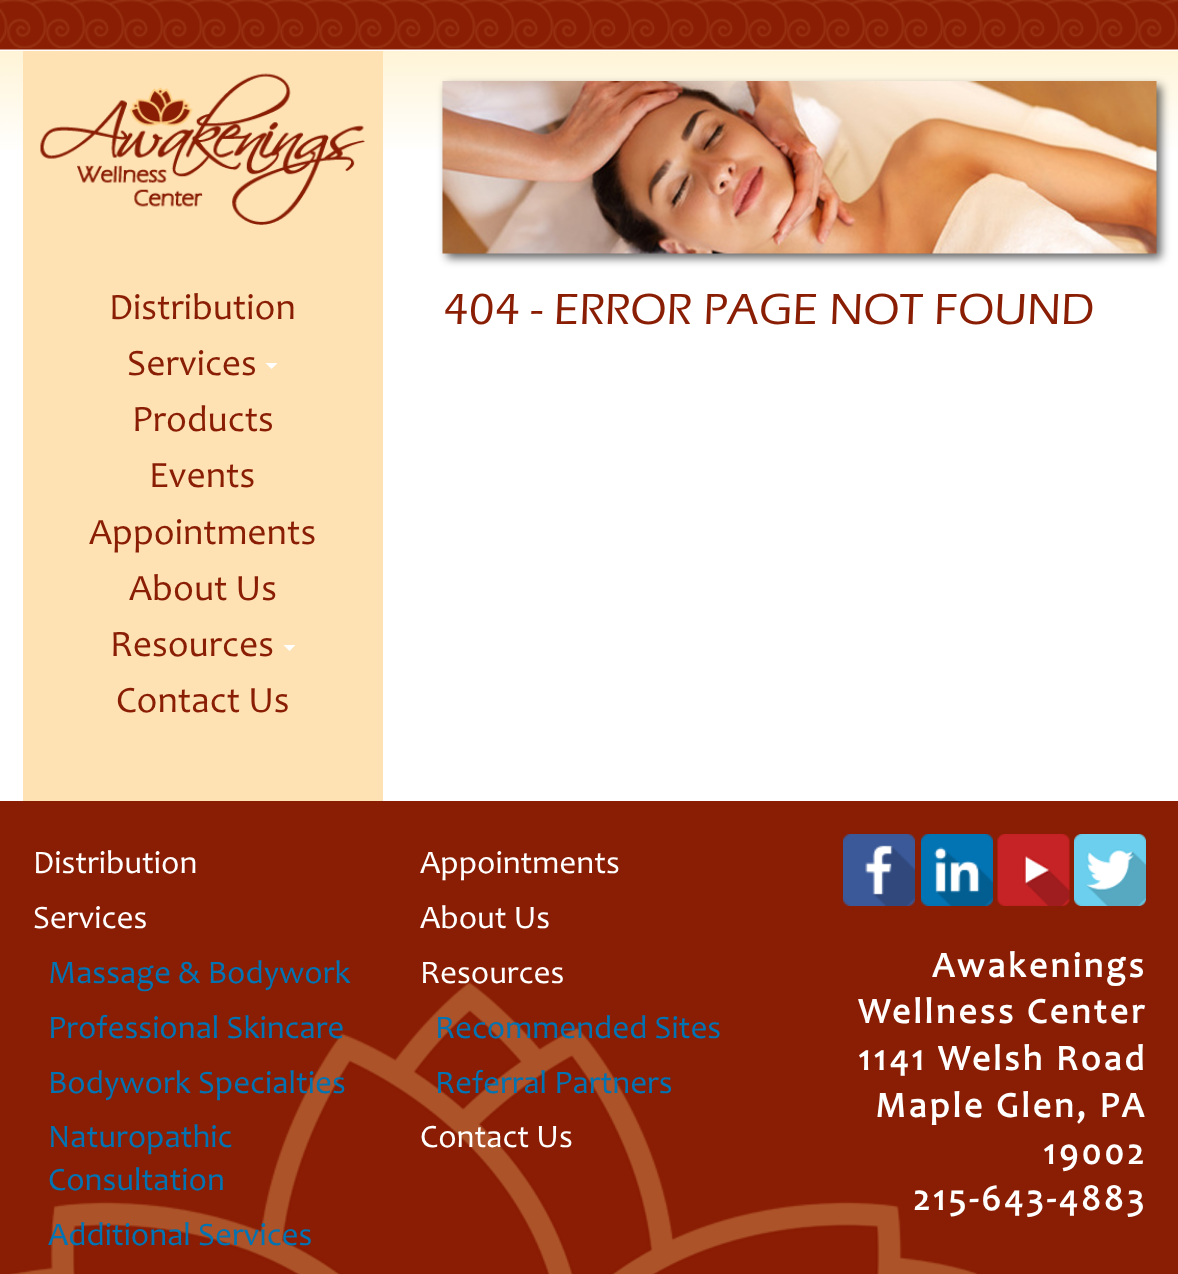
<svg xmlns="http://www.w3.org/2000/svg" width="1178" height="1274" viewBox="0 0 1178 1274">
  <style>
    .t1 { font: 37.5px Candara; fill: #8a1e04; }
    .t2 { font: 500 45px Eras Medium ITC; fill: #8a1e04; }
    .t3 { font: 33px Candara; fill: #fff; }
    .t4 { font: 33px Candara; fill: #0273b3; }
    .t5 { font: bold 36px Candara; letter-spacing: 3px; fill: #fff; }
  </style>
  <defs>
    <linearGradient id="g1" gradientUnits="userSpaceOnUse" x1="589" y1="51" x2="590" y2="801"><stop offset="0" stop-color="#fff4d7"/><stop offset="0.14" stop-color="#fff"/><stop offset="1" stop-color="#fff"/></linearGradient>
  </defs>
  <rect width="100%" height="100%" fill="#fff"/>
  <image x="0" y="0" width="1178" height="50" href="images/1.png"/>
  <rect x="0" y="51" width="1178" height="99" fill="url(#g1)"/>
  <rect x="23" y="51" width="360" height="750" fill="#fee2b4"/>
  <image x="40" y="73" width="325" height="152" href="images/2.png"/>
  <text x="109" y="319" class="t1">Distribution</text>
  <text x="127" y="375" class="t1">Services</text>
  <path d="M265.5 363H277.5L271.5 369Z" fill="#fff"/>
  <text x="132" y="431" class="t1">Products</text>
  <text x="149" y="487" class="t1">Events</text>
  <text x="89" y="544" class="t1">Appointments</text>
  <text x="129" y="600" class="t1">About Us</text>
  <text x="110" y="656" class="t1">Resources</text>
  <path d="M283.5 645H295.5L289.5 651Z" fill="#fff"/>
  <text x="116" y="712" class="t1">Contact Us</text>
  <rect x="447" y="86" width="714" height="172" fill="#0000009e" filter="blur(5px)"/>
  <image x="442" y="81" width="715" height="173" href="images/3.png"/>
  <text x="443" y="324" class="t2">404 - ERROR PAGE NOT FOUND</text>
  <rect x="0" y="801" width="1178" height="473" fill="#8a1e04"/>
  <image x="10" y="982" width="967" height="292" href="images/4.png"/>
  <text x="33" y="873" class="t3">Distribution</text>
  <text x="33" y="928" class="t3">Services</text>
  <text x="48" y="983" class="t4">Massage &amp; Bodywork</text>
  <text x="48" y="1038" class="t4">Professional Skincare</text>
  <text x="48" y="1093" class="t4">Bodywork Specialties</text>
  <text x="48" y="1147" class="t4">Naturopathic</text>
  <text x="48" y="1190" class="t4">Consultation</text>
  <text x="48" y="1245" class="t4">Additional Services</text>
  <text x="420" y="873" class="t3">Appointments</text>
  <text x="420" y="928" class="t3">About Us</text>
  <text x="420" y="983" class="t3">Resources</text>
  <text x="435" y="1038" class="t4">Recommended Sites</text>
  <text x="435" y="1093" class="t4">Referral Partners</text>
  <text x="420" y="1147" class="t3">Contact Us</text>
  <image x="843" y="834" width="72" height="72" href="images/5.png"/>
  <image x="921" y="834" width="72" height="72" href="images/6.png"/>
  <image x="997" y="834" width="73" height="72" href="images/7.png"/>
  <image x="1074" y="834" width="72" height="72" href="images/8.png"/>
  <text x="932" y="977" class="t5">Awakenings</text>
  <text x="858" y="1023" class="t5">Wellness Center</text>
  <text x="858" y="1070" class="t5">1141 Welsh Road</text>
  <text x="875" y="1117" class="t5">Maple Glen, PA</text>
  <text x="1043" y="1164" class="t5">19002</text>
  <text x="913" y="1210" class="t5">215-643-4883</text>
</svg>
